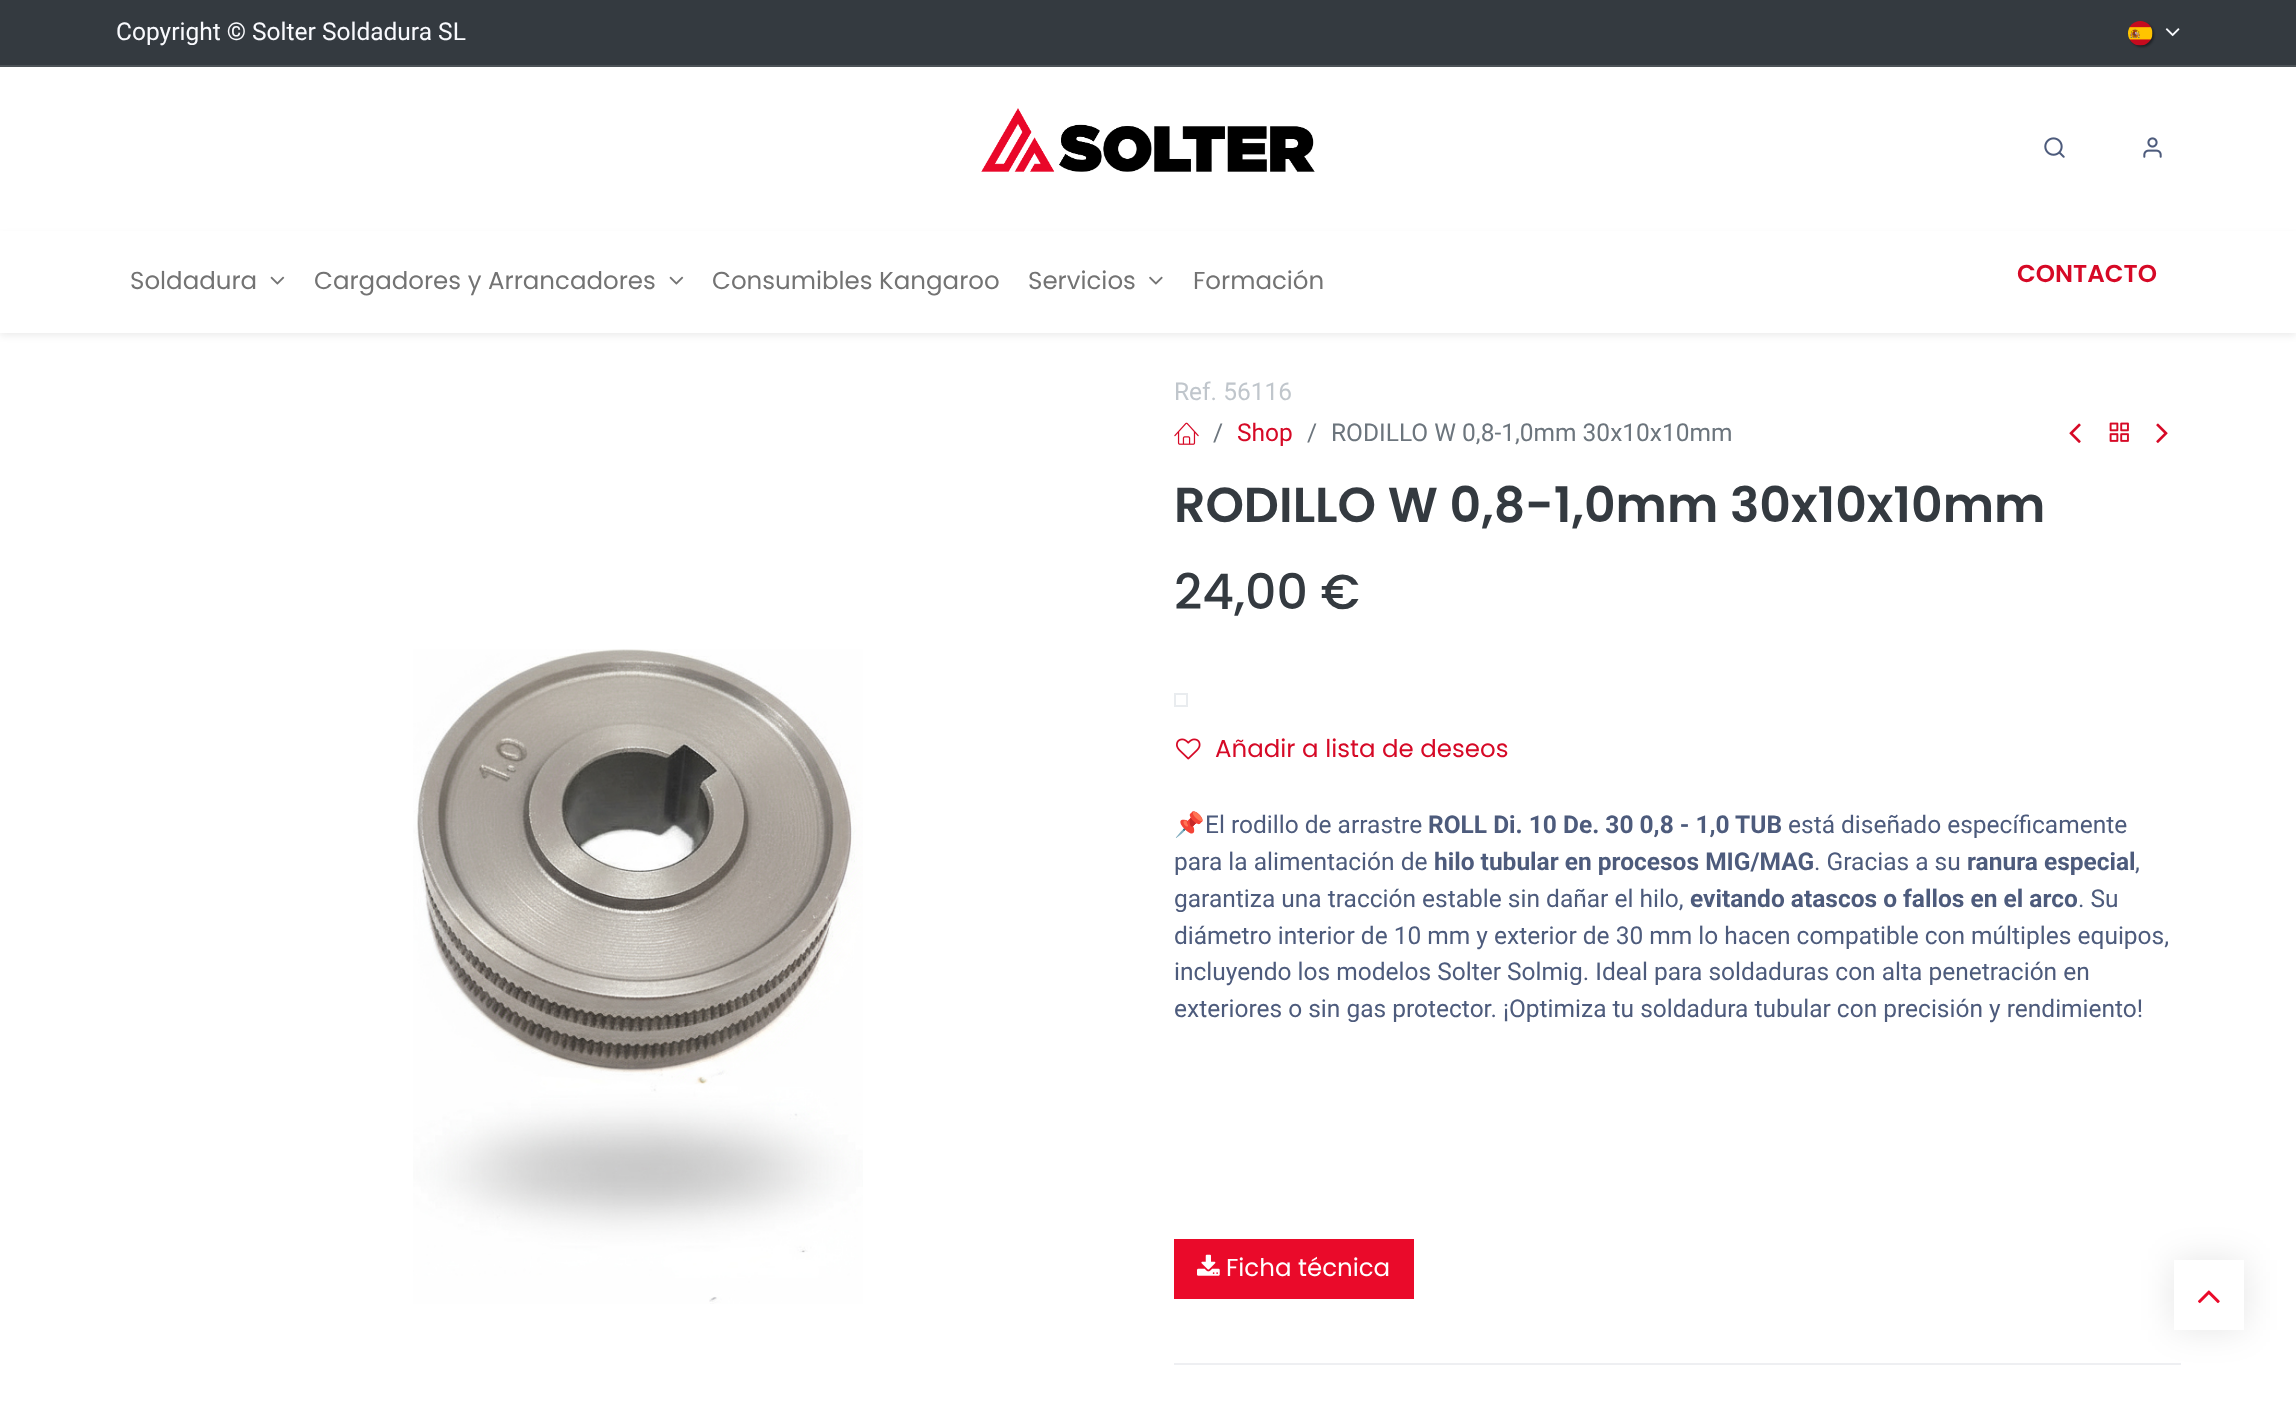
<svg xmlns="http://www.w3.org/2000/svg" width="2296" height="1425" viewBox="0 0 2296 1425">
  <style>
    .t1 { font: 24.5px Roboto; fill: #f9fafe; }
    .t2 { font: 24.5px Poppins; fill: #737373; }
    .t3 { font: 600 24.5px Poppins; fill: #d60926; }
    .t4 { font: 24.5px Roboto; fill: #c0c6cc; }
    .t5 { font: 24.5px Roboto; fill: #6c757d; }
    .t6 { font: 24.5px Roboto; fill: #d60926; }
    .t7 { font: 600 49px Poppins; fill: #343a40; }
    .t8 { font: 500 49px Poppins; fill: #343a40; }
    .t9 { font: 24.5px Poppins; fill: #d60926; }
    .t10 { font: 24.5px Noto Color Emoji; fill: #4d5b7c; }
    .t11 { font: 24.5px Roboto; fill: #4d5b7c; }
    .t12 { font: bold 24.5px Roboto; fill: #4d5b7c; }
    .t13 { font: 24.5px Poppins; fill: #fff; }
  </style>
  <rect width="100%" height="100%" fill="#fff"/>
  <rect x="0" y="0" width="2296" height="65" fill="#343a40"/>
  <rect x="0" y="65" width="2296" height="2" fill="#4c5257"/>
  <text x="116" y="40" class="t1">Copyright © Solter Soldadura SL</text>
  <rect x="2130" y="23" width="24" height="24" rx="12" fill="#0000006e" filter="blur(1px)"/>
  <image x="2128" y="21" width="25" height="25" href="images/1.png"/>
  <image x="2165" y="28" width="15" height="9" href="images/2.png"/>
  <image x="981" y="108" width="334" height="64" href="images/3.png"/>
  <image x="2044" y="137" width="21" height="21" href="images/4.png"/>
  <image x="2143" y="137" width="19" height="21" href="images/5.png"/>
  <rect x="0" y="235" width="2296" height="101" fill="#00000012" filter="blur(3.5px)"/>
  <rect x="0" y="231" width="2296" height="102" fill="#fff"/>
  <text x="130" y="289" class="t2">Soldadura</text>
  <image x="270" y="276" width="15" height="9" href="images/6.png"/>
  <text x="314" y="289" class="t2">Cargadores y Arrancadores</text>
  <image x="669" y="276" width="15" height="9" href="images/6.png"/>
  <text x="712" y="289" class="t2">Consumibles Kangaroo</text>
  <text x="1028" y="289" class="t2">Servicios</text>
  <image x="1149" y="276" width="14" height="9" href="images/7.png"/>
  <text x="1193" y="289" class="t2">Formación</text>
  <text x="2017" y="282" class="t3">CONTACTO</text>
  <image x="413" y="649" width="450" height="655" href="images/8.png"/>
  <text x="1174" y="400" class="t4">Ref. 56116</text>
  <image x="1174" y="422" width="25" height="23" href="images/9.png"/>
  <text x="1213" y="441" class="t5">/</text>
  <text x="1237" y="441" class="t6">Shop</text>
  <text x="1307" y="441" class="t5">/</text>
  <text x="1331" y="441" class="t5">RODILLO W 0,8-1,0mm 30x10x10mm</text>
  <image x="2069" y="423" width="12" height="20" href="images/10.png"/>
  <image x="2109" y="422" width="20" height="20" href="images/11.png"/>
  <image x="2156" y="423" width="12" height="20" href="images/12.png"/>
  <text x="1174" y="522" class="t7">RODILLO W 0,8-1,0mm 30x10x10mm</text>
  <text x="1174" y="609" class="t8">24,00 €</text>
  <rect x="1175" y="694" width="12" height="12" fill="none" stroke="#e9ecef" stroke-width="2"/>
  <image x="1176" y="738" width="25" height="22" href="images/13.png"/>
  <text x="1215" y="757" class="t9">Añadir a lista de deseos</text>
  <text x="1174" y="833" class="t10">📌</text>
  <text x="1205" y="833" class="t11">El rodillo de arrastre</text>
  <text x="1428" y="833" class="t12">ROLL Di. 10 De. 30 0,8 - 1,0 TUB</text>
  <text x="1788" y="833" class="t11">está diseñado específicamente</text>
  <text x="1174" y="870" class="t11">para la alimentación de</text>
  <text x="1434" y="870" class="t12">hilo tubular en procesos MIG/MAG</text>
  <text x="1814" y="870" class="t11">. Gracias a su</text>
  <text x="1967" y="870" class="t12">ranura especial</text>
  <text x="2135" y="870" class="t11">,</text>
  <text x="1174" y="907" class="t11">garantiza una tracción estable sin dañar el hilo,</text>
  <text x="1690" y="907" class="t12">evitando atascos o fallos en el arco</text>
  <text x="2078" y="907" class="t11">. Su</text>
  <text x="1174" y="944" class="t11">diámetro interior de 10 mm y exterior de 30 mm lo hacen compatible con múltiples equipos,</text>
  <text x="1174" y="980" class="t11">incluyendo los modelos Solter Solmig. Ideal para soldaduras con alta penetración en</text>
  <text x="1174" y="1017" class="t11">exteriores o sin gas protector. ¡Optimiza tu soldadura tubular con precisión y rendimiento!</text>
  <rect x="1174" y="1239" width="240" height="60" fill="#ea0a2a"/>
  <image x="1197" y="1254" width="23" height="22" href="images/14.png"/>
  <text x="1226" y="1276" class="t13">Ficha técnica</text>
  <rect x="1174" y="1363" width="1007" height="2" fill="#eeeff2"/>
  <rect x="2174" y="1260" width="70" height="70" fill="#0000001a" filter="blur(17.5px)"/>
  <rect x="2174" y="1260" width="70" height="70" fill="#fff"/>
  <image x="2198" y="1290" width="22" height="14" href="images/15.png"/>
</svg>
